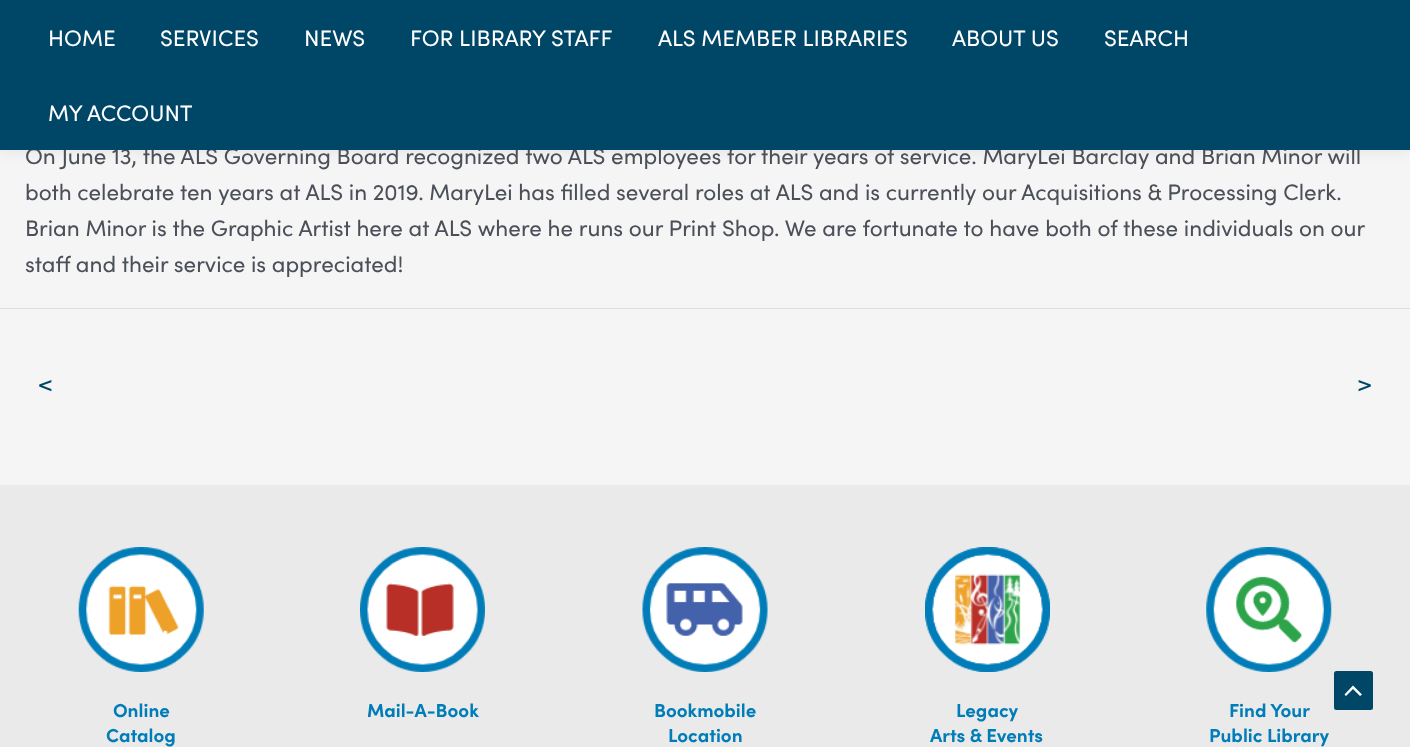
<svg xmlns="http://www.w3.org/2000/svg" width="1410" height="747" viewBox="0 0 1410 747">
  <style>
    .t1 { font: 22.5px Sofia; fill: #4b4f58; }
    .t2 { font: 22.5px Sofia; fill: #fff; }
    .t3 { font: 24px Sofia; fill: #004666; }
    .t4 { font: bold 18.75px Sofia; fill: #007db8; }
  </style>
  <rect width="100%" height="100%" fill="#f5f5f5"/>
  <rect x="0" y="3" width="1410" height="150" fill="#24324212" filter="blur(6px)"/>
  <text x="25" y="164" class="t1">On June 13, the ALS Governing Board recognized two ALS employees for their years of service. MaryLei Barclay and Brian Minor will</text>
  <rect x="0" y="0" width="1410" height="150" fill="#004666"/>
  <text x="48" y="46" class="t2">HOME</text>
  <text x="160" y="46" class="t2">SERVICES</text>
  <text x="304" y="46" class="t2">NEWS</text>
  <text x="410" y="46" class="t2">FOR LIBRARY STAFF</text>
  <text x="658" y="46" class="t2">ALS MEMBER LIBRARIES</text>
  <text x="952" y="46" class="t2">ABOUT US</text>
  <text x="1104" y="46" class="t2">SEARCH</text>
  <text x="48" y="121" class="t2">MY ACCOUNT</text>
  <text x="25" y="200" class="t1">both celebrate ten years at ALS in 2019. MaryLei has filled several roles at ALS and is currently our Acquisitions &amp; Processing Clerk.</text>
  <text x="25" y="236" class="t1">Brian Minor is the Graphic Artist here at ALS where he runs our Print Shop. We are fortunate to have both of these individuals on our</text>
  <text x="25" y="272" class="t1">staff and their service is appreciated!</text>
  <rect x="0" y="308" width="1410" height="1" fill="#ddd"/>
  <text x="38" y="392" class="t3">&lt;</text>
  <text x="1357" y="392" class="t3">&gt;</text>
  <rect x="0" y="485" width="1410" height="262" fill="#eaeaea"/>
  <image x="78" y="547" width="126" height="125" href="images/1.png"/>
  <text x="113" y="717" class="t4">Online</text>
  <text x="106" y="742" class="t4">Catalog</text>
  <image x="360" y="547" width="125" height="125" href="images/2.png"/>
  <text x="367" y="717" class="t4">Mail-A-Book</text>
  <image x="642" y="547" width="126" height="125" href="images/3.png"/>
  <text x="654" y="717" class="t4">Bookmobile</text>
  <text x="668" y="742" class="t4">Location</text>
  <image x="925" y="547" width="125" height="125" href="images/4.png"/>
  <text x="956" y="717" class="t4">Legacy</text>
  <text x="930" y="742" class="t4">Arts &amp; Events</text>
  <image x="1206" y="547" width="126" height="125" href="images/5.png"/>
  <text x="1229" y="717" class="t4">Find Your</text>
  <text x="1209" y="742" class="t4">Public Library</text>
  <rect x="1334" y="671" width="39" height="39" rx="2.5" fill="#004666"/>
  <path d="M1362 694.5L1353 685.5L1344.5 694.5L1346 696L1353 689L1360 696Z" fill="#fff"/>
</svg>
